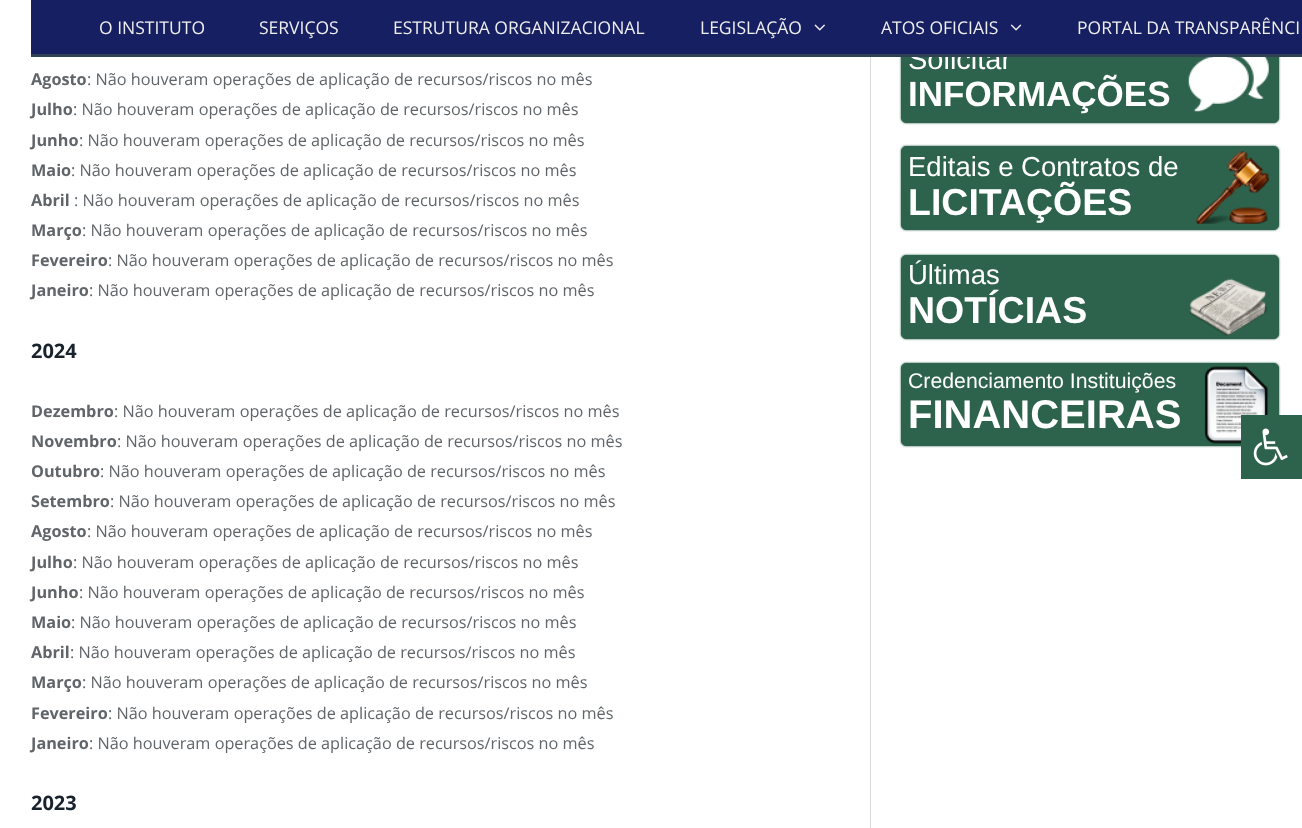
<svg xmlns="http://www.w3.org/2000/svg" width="1302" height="828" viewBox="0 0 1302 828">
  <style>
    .t1 { font: 29px Liberation Sans; fill: #fff; }
    .t2 { font: 17.5px Open Sans; fill: #efefef; }
    .t3 { font: bold 16.25px Open Sans; fill: #606569; }
    .t4 { font: 16.25px Open Sans; fill: #606569; }
    .t5 { font: bold 20px Open Sans; fill: #19232d; }
    .t6 { font: bold 35px Liberation Sans; fill: #fff; }
    .t7 { font: 27.5px Liberation Sans; fill: #fff; }
    .t8 { font: bold 37.5px Liberation Sans; fill: #fff; }
    .t9 { font: 21.25px Liberation Sans; fill: #fff; }
    .t10 { font: bold 40px Liberation Sans; fill: #fff; }
  </style>
  <rect width="100%" height="100%" fill="#fff"/>
  <rect x="901" y="39" width="378" height="84" rx="5" fill="#2d634c" filter="blur(1px)"/>
  <rect x="901.5" y="39.5" width="377" height="83" rx="4.5" fill="#2d634c" stroke="#2d634c"/>
  <text x="908" y="69" class="t1">Solicitar</text>
  <rect x="31" y="0" width="1271" height="54" fill="#161f61"/>
  <rect x="31" y="54" width="1271" height="3" fill="#2f4154"/>
  <text x="99" y="34" class="t2">O INSTITUTO</text>
  <text x="259" y="34" class="t2">SERVIÇOS</text>
  <text x="393" y="34" class="t2">ESTRUTURA ORGANIZACIONAL</text>
  <text x="700" y="34" class="t2">LEGISLAÇÃO</text>
  <image x="814" y="24" width="11" height="7" href="images/1.png"/>
  <text x="881" y="34" class="t2">ATOS OFICIAIS</text>
  <image x="1010" y="24" width="12" height="7" href="images/2.png"/>
  <text x="1077" y="34" class="t2">PORTAL DA TRANSPARÊNCI</text>
  <text x="31" y="85" class="t3">Agosto</text>
  <text x="87" y="85" class="t4">: Não houveram operações de aplicação de recursos/riscos no mês</text>
  <text x="31" y="115" class="t3">Julho</text>
  <text x="73" y="115" class="t4">: Não houveram operações de aplicação de recursos/riscos no mês</text>
  <text x="31" y="146" class="t3">Junho</text>
  <text x="79" y="146" class="t4">: Não houveram operações de aplicação de recursos/riscos no mês</text>
  <text x="31" y="176" class="t3">Maio</text>
  <text x="71" y="176" class="t4">: Não houveram operações de aplicação de recursos/riscos no mês</text>
  <text x="31" y="206" class="t3">Abril</text>
  <text x="74" y="206" class="t4">: Não houveram operações de aplicação de recursos/riscos no mês</text>
  <text x="31" y="236" class="t3">Março</text>
  <text x="82" y="236" class="t4">: Não houveram operações de aplicação de recursos/riscos no mês</text>
  <text x="31" y="266" class="t3">Fevereiro</text>
  <text x="108" y="266" class="t4">: Não houveram operações de aplicação de recursos/riscos no mês</text>
  <text x="31" y="296" class="t3">Janeiro</text>
  <text x="89" y="296" class="t4">: Não houveram operações de aplicação de recursos/riscos no mês</text>
  <text x="31" y="358" class="t5">2024</text>
  <text x="31" y="417" class="t3">Dezembro</text>
  <text x="114" y="417" class="t4">: Não houveram operações de aplicação de recursos/riscos no mês</text>
  <text x="31" y="447" class="t3">Novembro</text>
  <text x="117" y="447" class="t4">: Não houveram operações de aplicação de recursos/riscos no mês</text>
  <text x="31" y="477" class="t3">Outubro</text>
  <text x="100" y="477" class="t4">: Não houveram operações de aplicação de recursos/riscos no mês</text>
  <text x="31" y="507" class="t3">Setembro</text>
  <text x="110" y="507" class="t4">: Não houveram operações de aplicação de recursos/riscos no mês</text>
  <text x="31" y="537" class="t3">Agosto</text>
  <text x="87" y="537" class="t4">: Não houveram operações de aplicação de recursos/riscos no mês</text>
  <text x="31" y="568" class="t3">Julho</text>
  <text x="73" y="568" class="t4">: Não houveram operações de aplicação de recursos/riscos no mês</text>
  <text x="31" y="598" class="t3">Junho</text>
  <text x="79" y="598" class="t4">: Não houveram operações de aplicação de recursos/riscos no mês</text>
  <text x="31" y="628" class="t3">Maio</text>
  <text x="71" y="628" class="t4">: Não houveram operações de aplicação de recursos/riscos no mês</text>
  <text x="31" y="658" class="t3">Abril</text>
  <text x="70" y="658" class="t4">: Não houveram operações de aplicação de recursos/riscos no mês</text>
  <text x="31" y="688" class="t3">Março</text>
  <text x="82" y="688" class="t4">: Não houveram operações de aplicação de recursos/riscos no mês</text>
  <text x="31" y="719" class="t3">Fevereiro</text>
  <text x="108" y="719" class="t4">: Não houveram operações de aplicação de recursos/riscos no mês</text>
  <text x="31" y="749" class="t3">Janeiro</text>
  <text x="89" y="749" class="t4">: Não houveram operações de aplicação de recursos/riscos no mês</text>
  <text x="31" y="810" class="t5">2023</text>
  <rect x="870" y="57" width="1" height="771" fill="#d9d9d9"/>
  <image x="1188" y="57" width="81" height="55" href="images/3.png"/>
  <text x="908" y="106" class="t6">INFORMAÇÕES</text>
  <rect x="901" y="146" width="378" height="84" rx="5" fill="#2d634c" filter="blur(1px)"/>
  <rect x="901.5" y="146.5" width="377" height="83" rx="4.5" fill="#2d634c" stroke="#2d634c"/>
  <text x="908" y="176" class="t7">Editais e Contratos de</text>
  <image x="1196" y="151" width="73" height="73" href="images/4.png"/>
  <text x="908" y="215" class="t8">LICITAÇÕES</text>
  <rect x="901" y="255" width="378" height="84" rx="5" fill="#2d634c" filter="blur(1px)"/>
  <rect x="901.5" y="255.5" width="377" height="83" rx="4.5" fill="#2d634c" stroke="#2d634c"/>
  <text x="908" y="284" class="t7">Últimas</text>
  <text x="908" y="323" class="t8">NOTÍCIAS</text>
  <image x="1189" y="278" width="79" height="58" href="images/5.png"/>
  <rect x="901" y="363" width="378" height="83" rx="5" fill="#2d634c" filter="blur(1px)"/>
  <rect x="901.5" y="363.5" width="377" height="82" rx="4.5" fill="#2d634c" stroke="#2d634c"/>
  <text x="908" y="388" class="t9">Credenciamento Instituições</text>
  <image x="1204" y="366" width="64" height="78" href="images/6.png"/>
  <text x="908" y="428" class="t10">FINANCEIRAS</text>
  <rect x="1241" y="415" width="61" height="64" fill="#2d634c"/>
  <image x="1253" y="428" width="35" height="38" href="images/7.png"/>
</svg>
